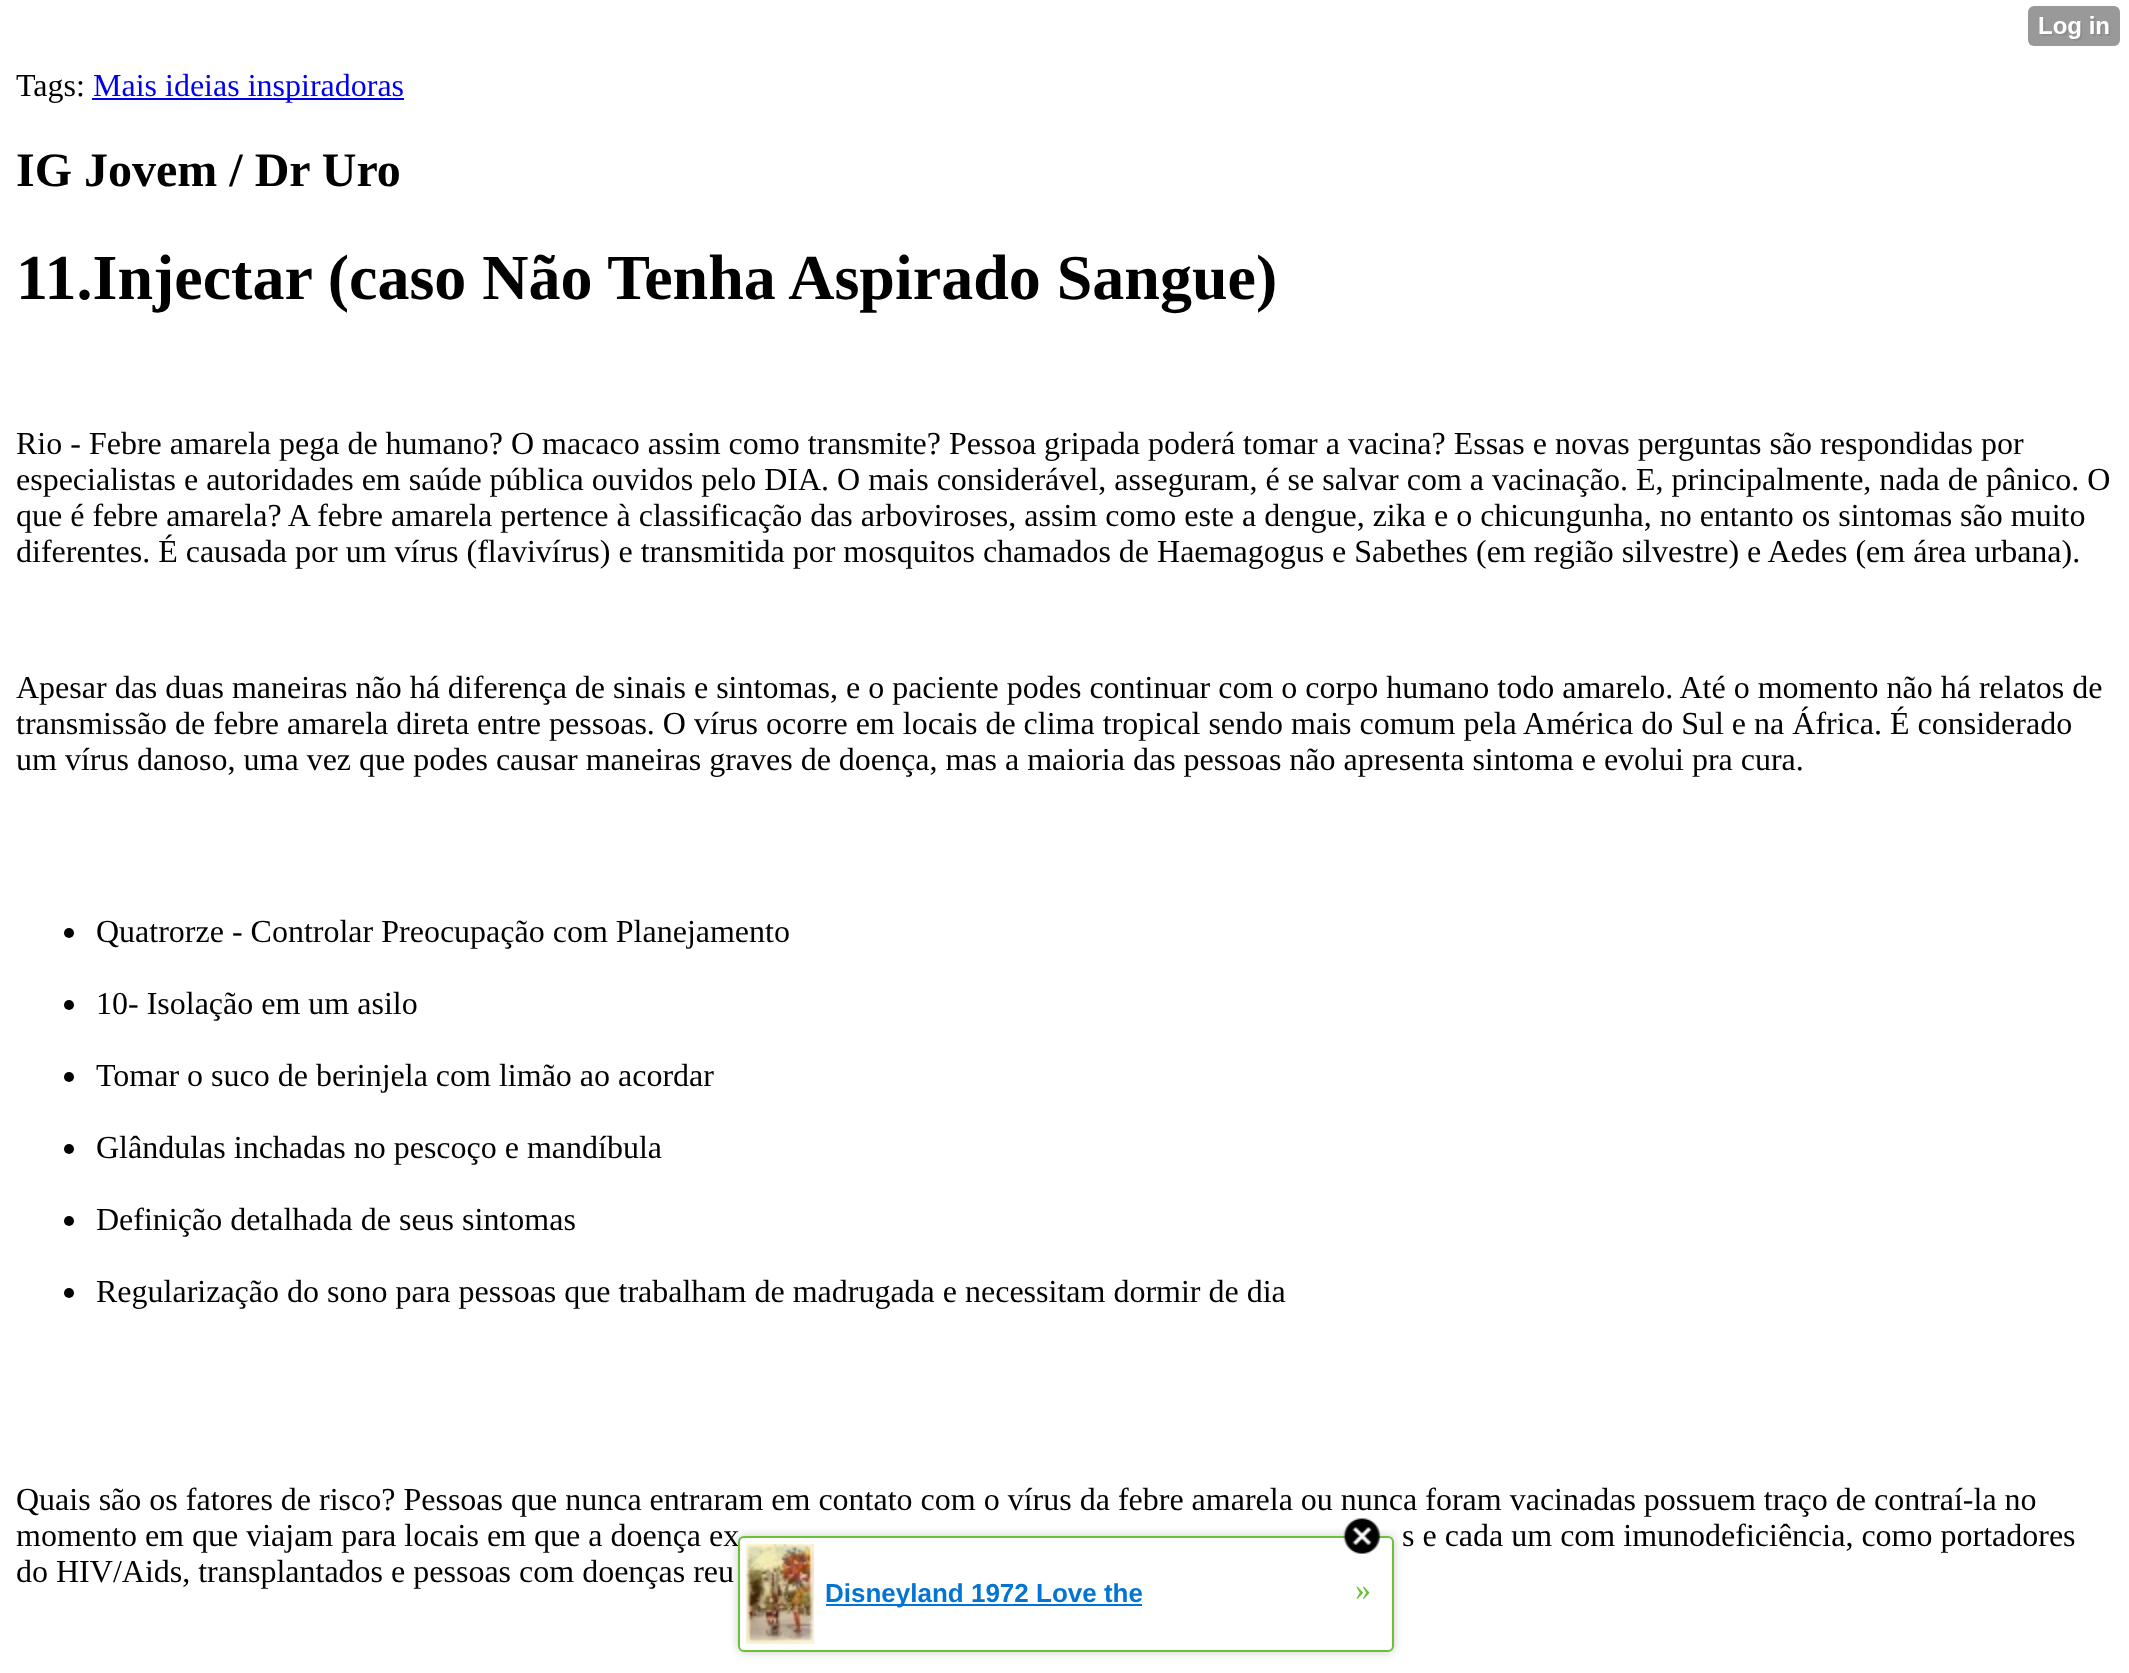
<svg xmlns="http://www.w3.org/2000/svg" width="2129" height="1673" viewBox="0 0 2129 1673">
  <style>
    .t1 { font: 32px Liberation Serif; fill: #000; }
    .t2 { font: 32px Liberation Serif; fill: #00e; }
    .t3 { font: bold 48px Liberation Serif; fill: #000; }
    .t4 { font: bold 64px Liberation Serif; fill: #000; }
    .t5 { font: bold 26px Liberation Sans; fill: #0274d4; }
    .t6 { font: 32px Liberation Serif; fill: #6bc135; }
  </style>
  <rect width="100%" height="100%" fill="#fff"/>
  <image x="2028" y="6" width="92" height="40" href="images/1.png"/>
  <text x="16" y="96" class="t1">Tags:</text>
  <rect x="92" y="98" width="312" height="2" fill="#00e"/>
  <text x="93" y="96" class="t2">Mais ideias inspiradoras</text>
  <text x="16" y="186" class="t3">IG Jovem / Dr Uro</text>
  <text x="16" y="299" class="t4">11.Injectar (caso Não Tenha Aspirado Sangue)</text>
  <text x="16" y="454" class="t1">Rio - Febre amarela pega de humano? O macaco assim como transmite? Pessoa gripada poderá tomar a vacina? Essas e novas perguntas são respondidas por</text>
  <text x="16" y="490" class="t1">especialistas e autoridades em saúde pública ouvidos pelo DIA. O mais considerável, asseguram, é se salvar com a vacinação. E, principalmente, nada de pânico. O</text>
  <text x="16" y="526" class="t1">que é febre amarela? A febre amarela pertence à classificação das arboviroses, assim como este a dengue, zika e o chicungunha, no entanto os sintomas são muito</text>
  <text x="16" y="562" class="t1">diferentes. É causada por um vírus (flavivírus) e transmitida por mosquitos chamados de Haemagogus e Sabethes (em região silvestre) e Aedes (em área urbana).</text>
  <text x="16" y="698" class="t1">Apesar das duas maneiras não há diferença de sinais e sintomas, e o paciente podes continuar com o corpo humano todo amarelo. Até o momento não há relatos de</text>
  <text x="16" y="734" class="t1">transmissão de febre amarela direta entre pessoas. O vírus ocorre em locais de clima tropical sendo mais comum pela América do Sul e na África. É considerado</text>
  <text x="16" y="770" class="t1">um vírus danoso, uma vez que podes causar maneiras graves de doença, mas a maioria das pessoas não apresenta sintoma e evolui pra cura.</text>
  <circle cx="69" cy="933" r="5" fill="#000"/>
  <text x="96" y="942" class="t1">Quatrorze - Controlar Preocupação com Planejamento</text>
  <circle cx="69" cy="1005" r="5" fill="#000"/>
  <text x="96" y="1014" class="t1">10- Isolação em um asilo</text>
  <circle cx="69" cy="1077" r="5" fill="#000"/>
  <text x="96" y="1086" class="t1">Tomar o suco de berinjela com limão ao acordar</text>
  <circle cx="69" cy="1149" r="5" fill="#000"/>
  <text x="96" y="1158" class="t1">Glândulas inchadas no pescoço e mandíbula</text>
  <circle cx="69" cy="1221" r="5" fill="#000"/>
  <text x="96" y="1230" class="t1">Definição detalhada de seus sintomas</text>
  <circle cx="69" cy="1293" r="5" fill="#000"/>
  <text x="96" y="1302" class="t1">Regularização do sono para pessoas que trabalham de madrugada e necessitam dormir de dia</text>
  <text x="16" y="1510" class="t1">Quais são os fatores de risco? Pessoas que nunca entraram em contato com o vírus da febre amarela ou nunca foram vacinadas possuem traço de contraí-la no</text>
  <text x="16" y="1546" class="t1">momento em que viajam para locais em que a doença ex</text>
  <text x="1402" y="1546" class="t1">s e cada um com imunodeficiência, como portadores</text>
  <text x="16" y="1582" class="t1">do HIV/Aids, transplantados e pessoas com doenças reu</text>
  <rect x="738" y="1536" width="656" height="116" rx="6" fill="#00000033" filter="blur(5px)"/>
  <rect x="739" y="1537" width="654" height="114" rx="5" fill="#fff" stroke="#6bc135" stroke-width="2"/>
  <image x="1343" y="1518" width="38" height="36" href="images/2.png"/>
  <image x="745" y="1544" width="69" height="100" href="images/3.png"/>
  <rect x="826" y="1604" width="316" height="2" fill="#0274d4"/>
  <text x="825" y="1602" class="t5">Disneyland 1972 Love the</text>
  <text x="1355" y="1600" class="t6">»</text>
</svg>
